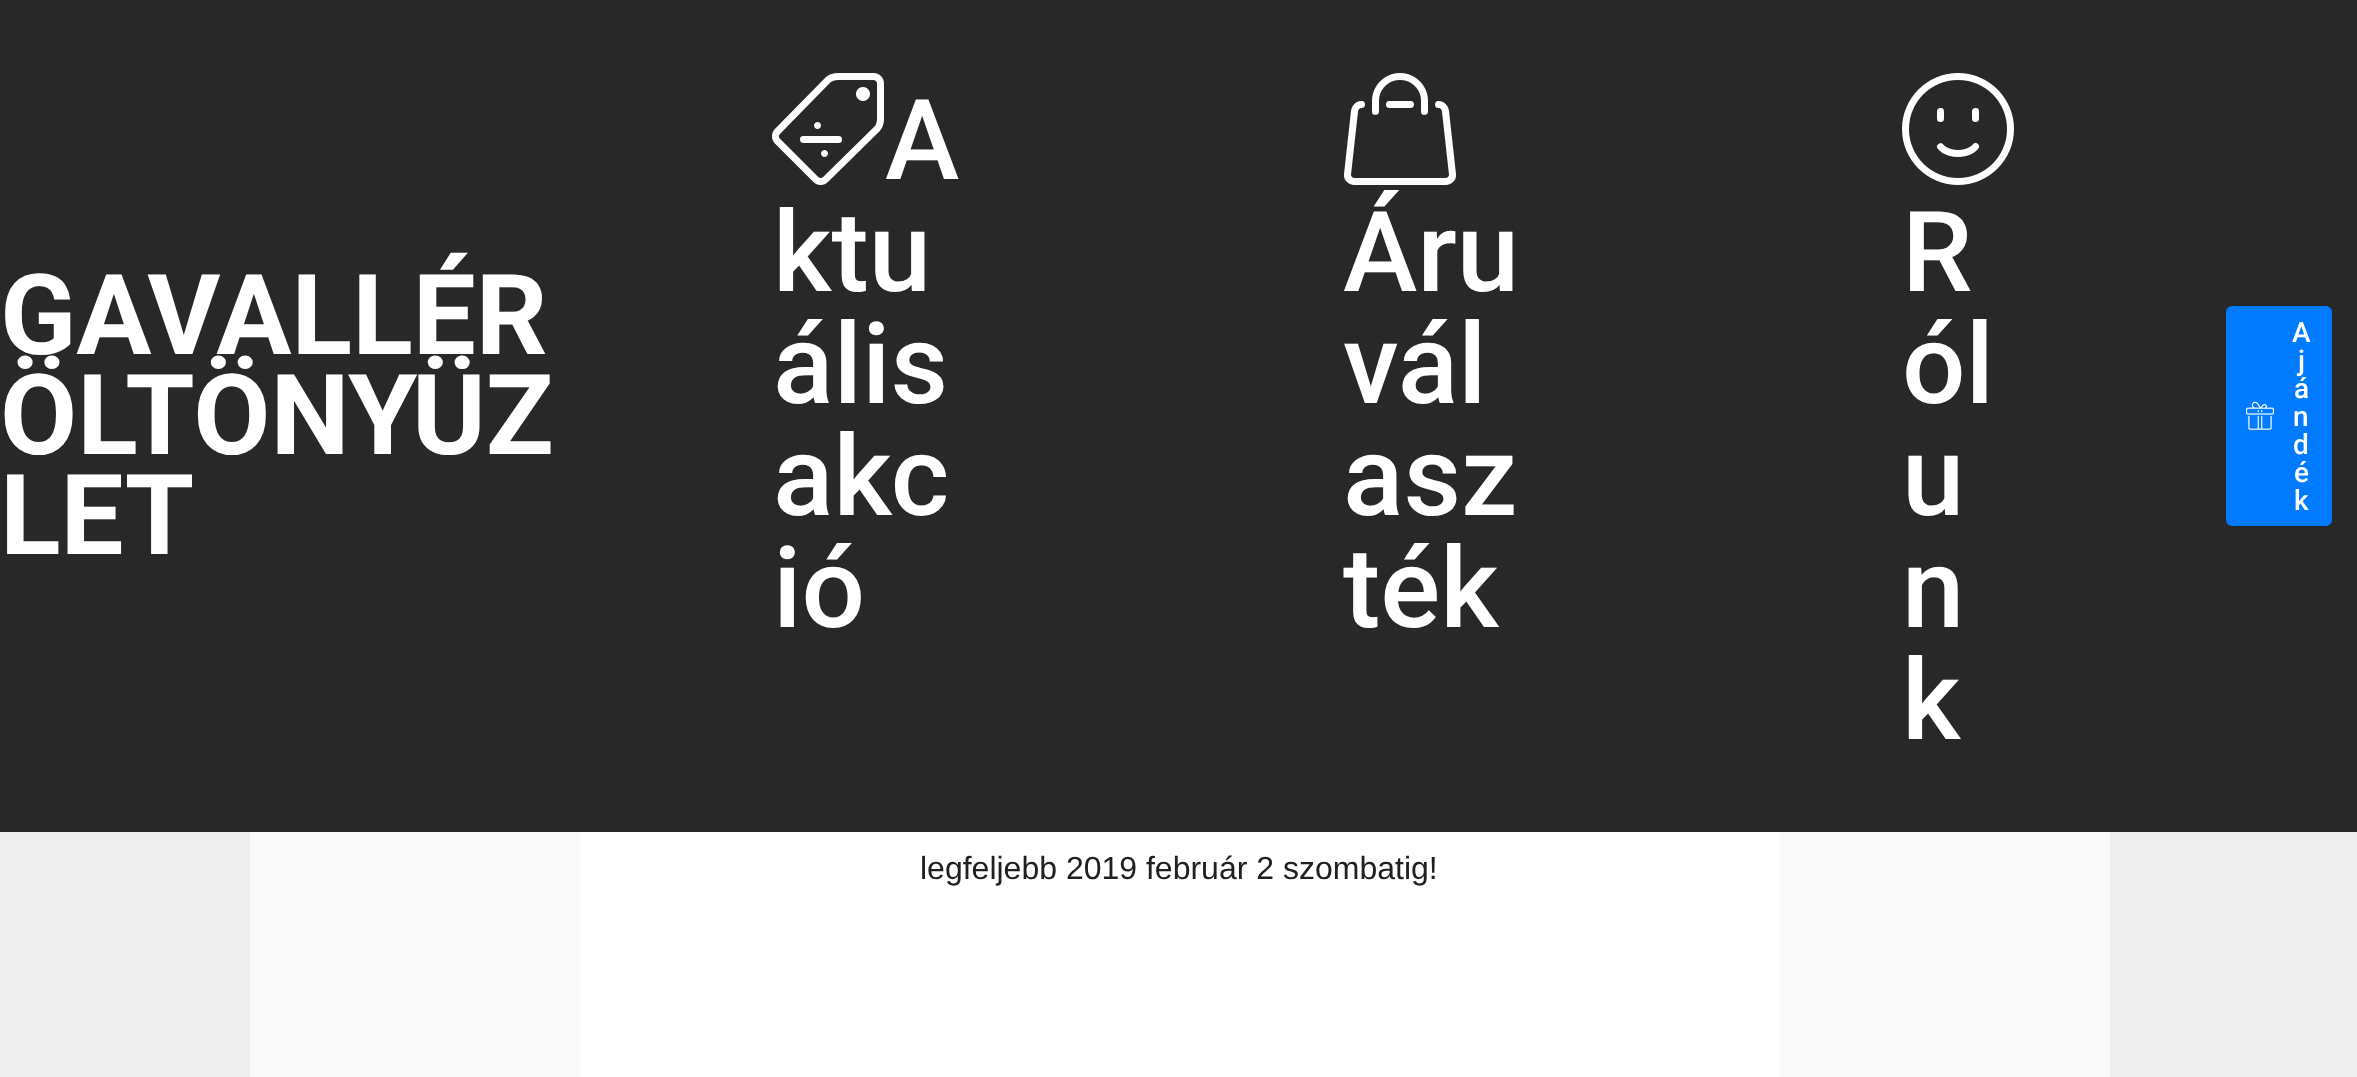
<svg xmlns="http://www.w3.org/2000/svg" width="2357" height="1077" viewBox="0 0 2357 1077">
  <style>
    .t1 { font: bold 112px Roboto; fill: #fff; }
    .t2 { font: 500 112px Roboto; fill: #fff; }
    .t3 { font: 500 28px Roboto; letter-spacing: 2px; fill: #fff; }
    .t4 { font: 32px Liberation Sans; fill: #202020; }
  </style>
  <rect width="100%" height="100%" fill="#eee"/>
  <rect x="0" y="0" width="2357" height="832" fill="#282828"/>
  <text x="0" y="354" class="t1">GAVALLÉR</text>
  <text x="0" y="454" class="t1">ÖLTÖNYÜZ</text>
  <text x="0" y="554" class="t1">LET</text>
  <image x="772" y="73" width="112" height="112" href="images/1.png"/>
  <text x="885" y="179" class="t2">A</text>
  <text x="773" y="291" class="t2">ktu</text>
  <text x="773" y="403" class="t2">ális</text>
  <text x="773" y="515" class="t2">akc</text>
  <text x="773" y="627" class="t2">ió</text>
  <image x="1343" y="73" width="113" height="112" href="images/2.png"/>
  <text x="1343" y="291" class="t2">Áru</text>
  <text x="1343" y="403" class="t2">vál</text>
  <text x="1343" y="515" class="t2">asz</text>
  <text x="1343" y="627" class="t2">ték</text>
  <image x="1902" y="73" width="112" height="112" href="images/3.png"/>
  <text x="1902" y="291" class="t2">R</text>
  <text x="1902" y="403" class="t2">ól</text>
  <text x="1902" y="515" class="t2">u</text>
  <text x="1902" y="627" class="t2">n</text>
  <text x="1902" y="739" class="t2">k</text>
  <rect x="2228" y="308" width="102" height="216" rx="4" fill="#007bff" stroke="#007bff" stroke-width="4"/>
  <text x="2292" y="342" class="t3">A</text>
  <text x="2298" y="370" class="t3">j</text>
  <text x="2294" y="398" class="t3">á</text>
  <image x="2246" y="401" width="28" height="29" href="images/4.png"/>
  <text x="2293" y="426" class="t3">n</text>
  <text x="2293" y="454" class="t3">d</text>
  <text x="2294" y="482" class="t3">é</text>
  <text x="2294" y="510" class="t3">k</text>
  <rect x="250" y="832" width="1860" height="245" fill="#fafafa"/>
  <rect x="580" y="832" width="1200" height="245" fill="#fff"/>
  <text x="920" y="879" class="t4">legfeljebb 2019 február 2 szombatig!</text>
</svg>
